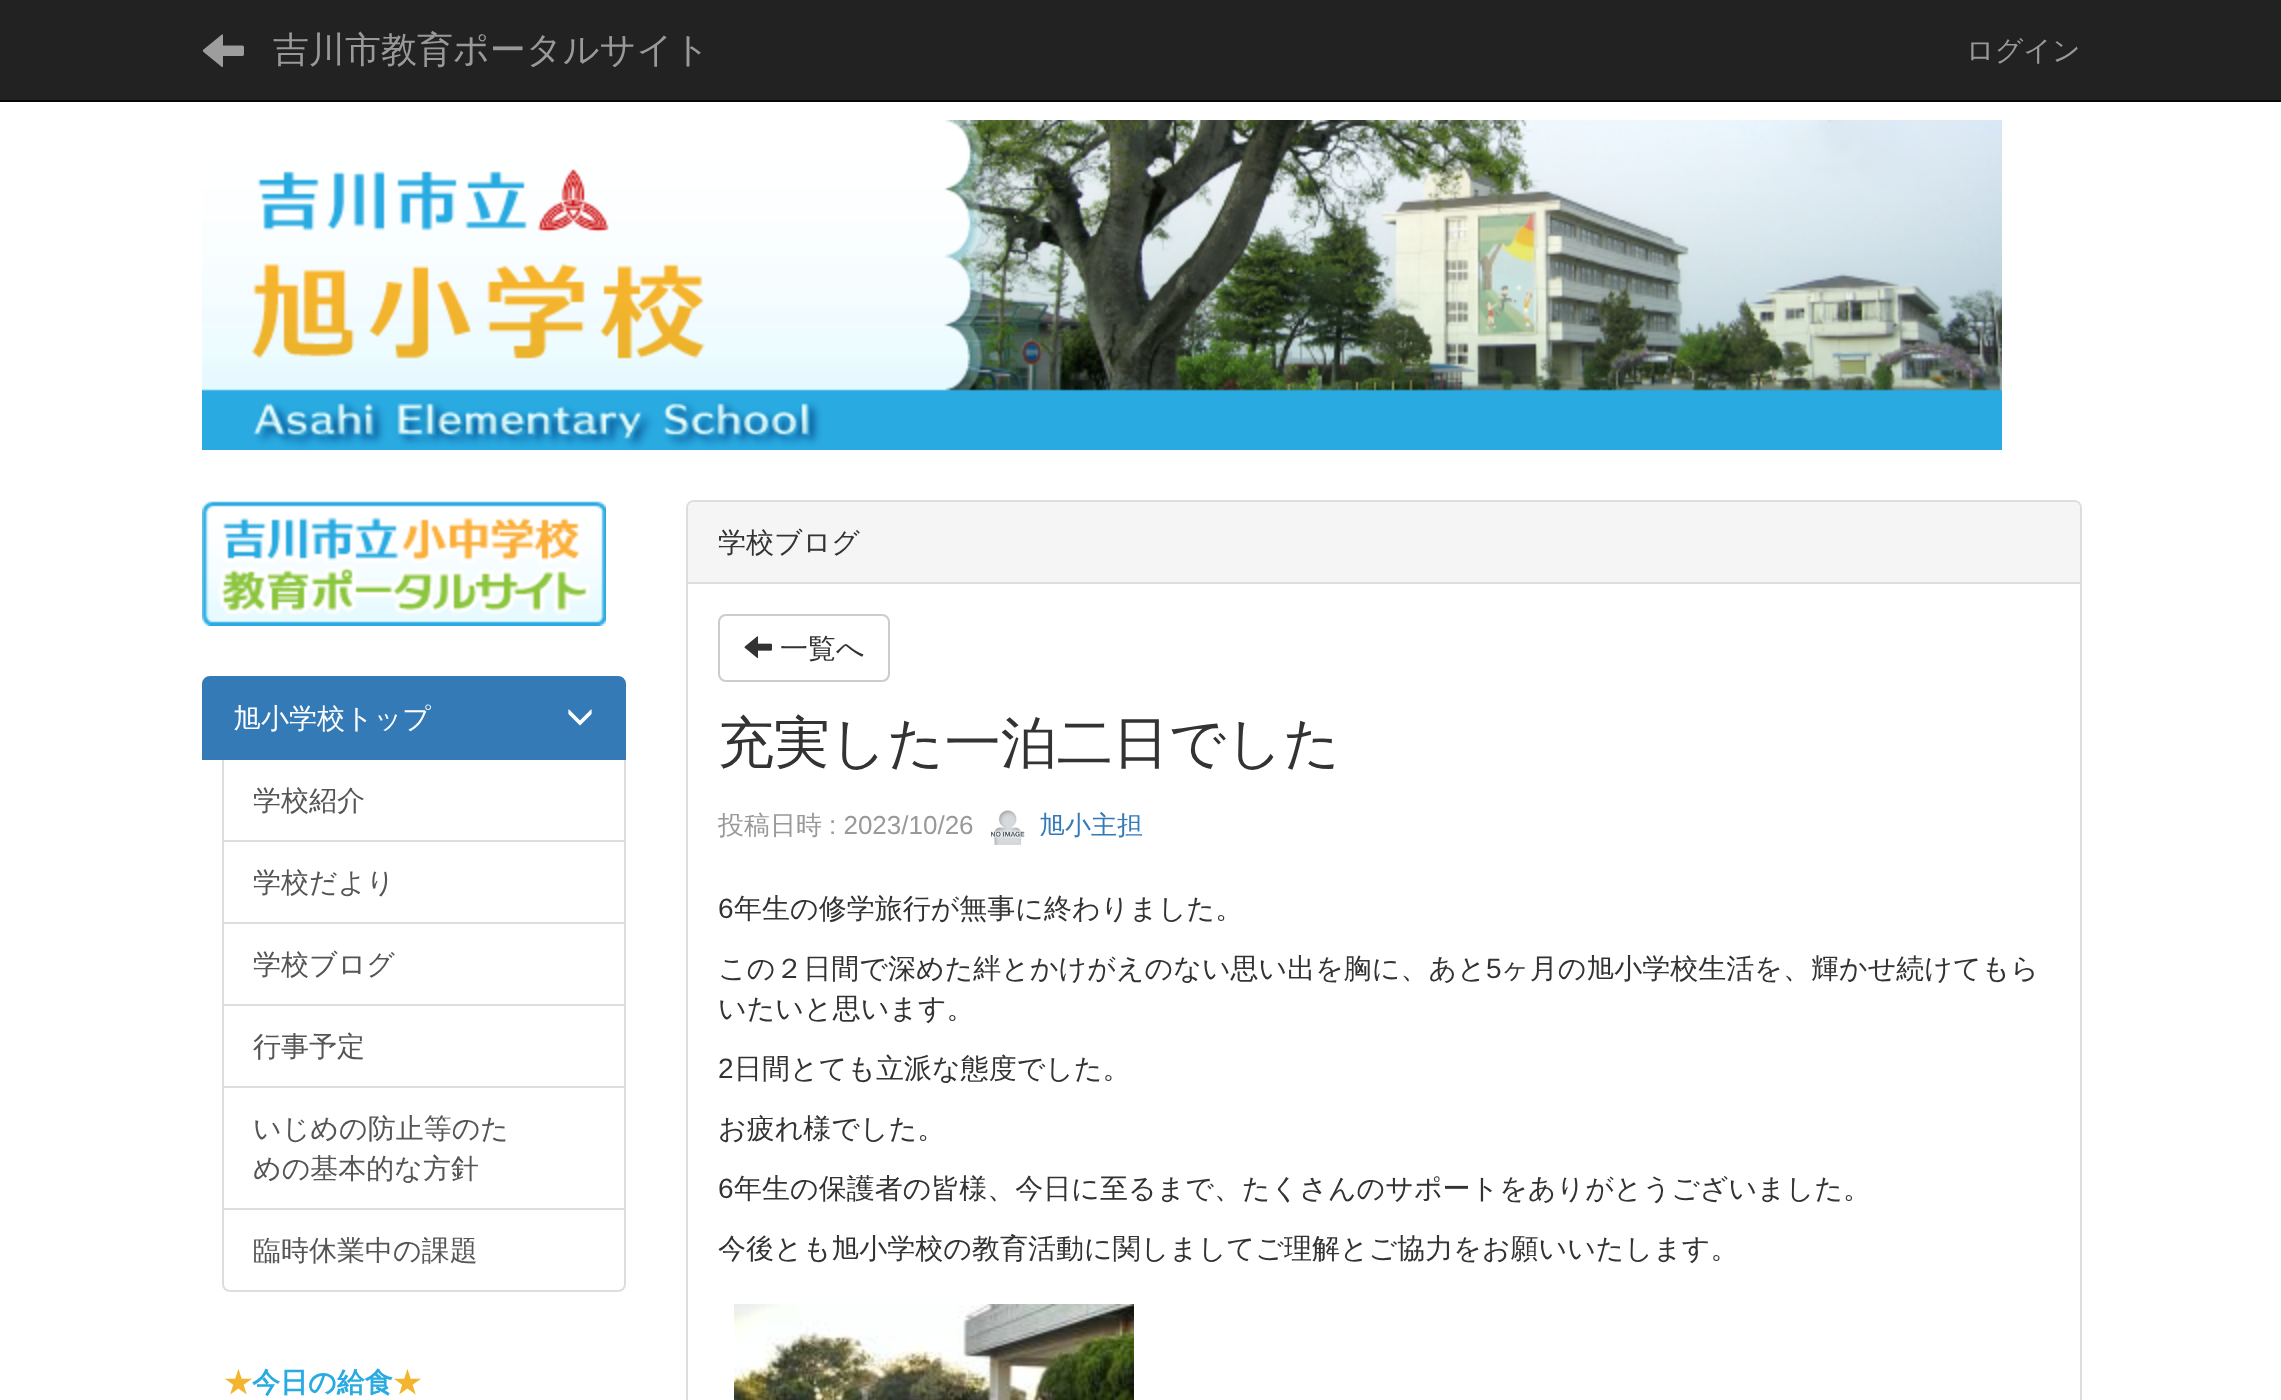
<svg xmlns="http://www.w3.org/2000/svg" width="2281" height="1400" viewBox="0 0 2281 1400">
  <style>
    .t1 { font: 500 36px WenQuanYi Zen Hei; fill: #999; }
    .t2 { font: 500 28px WenQuanYi Zen Hei; fill: #999; }
    .t3 { font: 500 28px WenQuanYi Zen Hei; fill: #fff; }
    .t4 { font: 500 28px WenQuanYi Zen Hei; fill: #555; }
    .t5 { font: bold 28px WenQuanYi Zen Hei; fill: #f2b52d; }
    .t6 { font: bold 28px WenQuanYi Zen Hei; fill: #29abe2; }
    .t7 { font: 500 28px WenQuanYi Zen Hei; fill: #333; }
    .t8 { font: 500 56px WenQuanYi Zen Hei; fill: #333; }
    .t9 { font: 500 26px WenQuanYi Zen Hei; fill: #999; }
    .t10 { font: 26px Liberation Sans; fill: #999; }
    .t11 { font: 500 26px WenQuanYi Zen Hei; fill: #337ab7; }
    .t12 { font: 28px Liberation Sans; fill: #333; }
  </style>
  <rect width="100%" height="100%" fill="#fff"/>
  <rect x="0" y="0" width="2281" height="100" fill="#222"/>
  <rect x="0" y="100" width="2281" height="2" fill="#080808"/>
  <image x="202" y="34" width="42" height="34" href="images/1.png"/>
  <text x="273" y="62" class="t1">吉川市教育ポータルサイト</text>
  <text x="1966" y="60" class="t2">ログイン</text>
  <image x="202" y="120" width="1800" height="330" href="images/2.png"/>
  <image x="202" y="501" width="404" height="125" href="images/3.png"/>
  <rect x="223" y="759" width="402" height="82" fill="none" stroke="#ddd" stroke-width="2"/>
  <path d="M210 677H618C622 677 625 680 625 684V759H203V684C203 680 206 677 210 677Z" fill="#337ab7" stroke="#337ab7" stroke-width="2"/>
  <text x="233" y="728" class="t3">旭小学校トップ</text>
  <image x="568" y="709" width="24" height="17" href="images/4.png"/>
  <text x="253" y="810" class="t4">学校紹介</text>
  <rect x="223" y="841" width="402" height="82" fill="none" stroke="#ddd" stroke-width="2"/>
  <text x="253" y="892" class="t4">学校だより</text>
  <rect x="223" y="923" width="402" height="82" fill="none" stroke="#ddd" stroke-width="2"/>
  <text x="253" y="974" class="t4">学校ブログ</text>
  <rect x="223" y="1005" width="402" height="82" fill="none" stroke="#ddd" stroke-width="2"/>
  <text x="253" y="1056" class="t4">行事予定</text>
  <rect x="223" y="1087" width="402" height="122" fill="none" stroke="#ddd" stroke-width="2"/>
  <text x="253" y="1138" class="t4">いじめの防止等のた</text>
  <text x="253" y="1178" class="t4">めの基本的な方針</text>
  <path d="M223 1209H625V1284C625 1288 622 1291 618 1291H230C226 1291 223 1288 223 1284Z" fill="#fff" stroke="#ddd" stroke-width="2"/>
  <text x="253" y="1260" class="t4">臨時休業中の課題</text>
  <text x="224" y="1392" class="t5">★</text>
  <text x="252" y="1392" class="t6">今日の給食</text>
  <text x="393" y="1392" class="t5">★</text>
  <rect x="687" y="501" width="1394" height="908" rx="7" fill="none" stroke="#ddd" stroke-width="2"/>
  <path d="M694 502H2074C2077.5 502 2080 504.5 2080 508V584H688V508C688 504.5 690.5 502 694 502Z" fill="#f5f5f5"/>
  <rect x="688" y="582" width="1392" height="2" fill="#ddd"/>
  <text x="718" y="552" class="t7">学校ブログ</text>
  <rect x="719" y="615" width="170" height="66" rx="7" fill="none" stroke="#ccc" stroke-width="2"/>
  <image x="744" y="636" width="28" height="23" href="images/5.png"/>
  <text x="780" y="658" class="t7">一覧へ</text>
  <text x="718" y="762" class="t8">充実した一泊二日でした</text>
  <text x="718" y="834" class="t9">投稿日時</text>
  <text x="829" y="834" class="t10">: 2023/10/26</text>
  <image x="991" y="810" width="34" height="35" href="images/6.png"/>
  <text x="1039" y="834" class="t11">旭小主担</text>
  <text x="718" y="918" class="t12">6</text>
  <text x="734" y="918" class="t7">年生の修学旅行が無事に終わりました。</text>
  <text x="718" y="978" class="t7">この２日間で深めた絆とかけがえのない思い出を胸に、あと</text>
  <text x="1486" y="978" class="t12">5</text>
  <text x="1501" y="978" class="t7">ヶ月の旭小学校生活を、輝かせ続けてもら</text>
  <text x="718" y="1018" class="t7">いたいと思います。</text>
  <text x="718" y="1078" class="t12">2</text>
  <text x="734" y="1078" class="t7">日間とても立派な態度でした。</text>
  <text x="718" y="1138" class="t7">お疲れ様でした。</text>
  <text x="718" y="1198" class="t12">6</text>
  <text x="734" y="1198" class="t7">年生の保護者の皆様、今日に至るまで、たくさんのサポートをありがとうございました。</text>
  <text x="718" y="1258" class="t7">今後とも旭小学校の教育活動に関しましてご理解とご協力をお願いいたします。</text>
  <image x="734" y="1304" width="400" height="96" href="images/7.png"/>
</svg>
